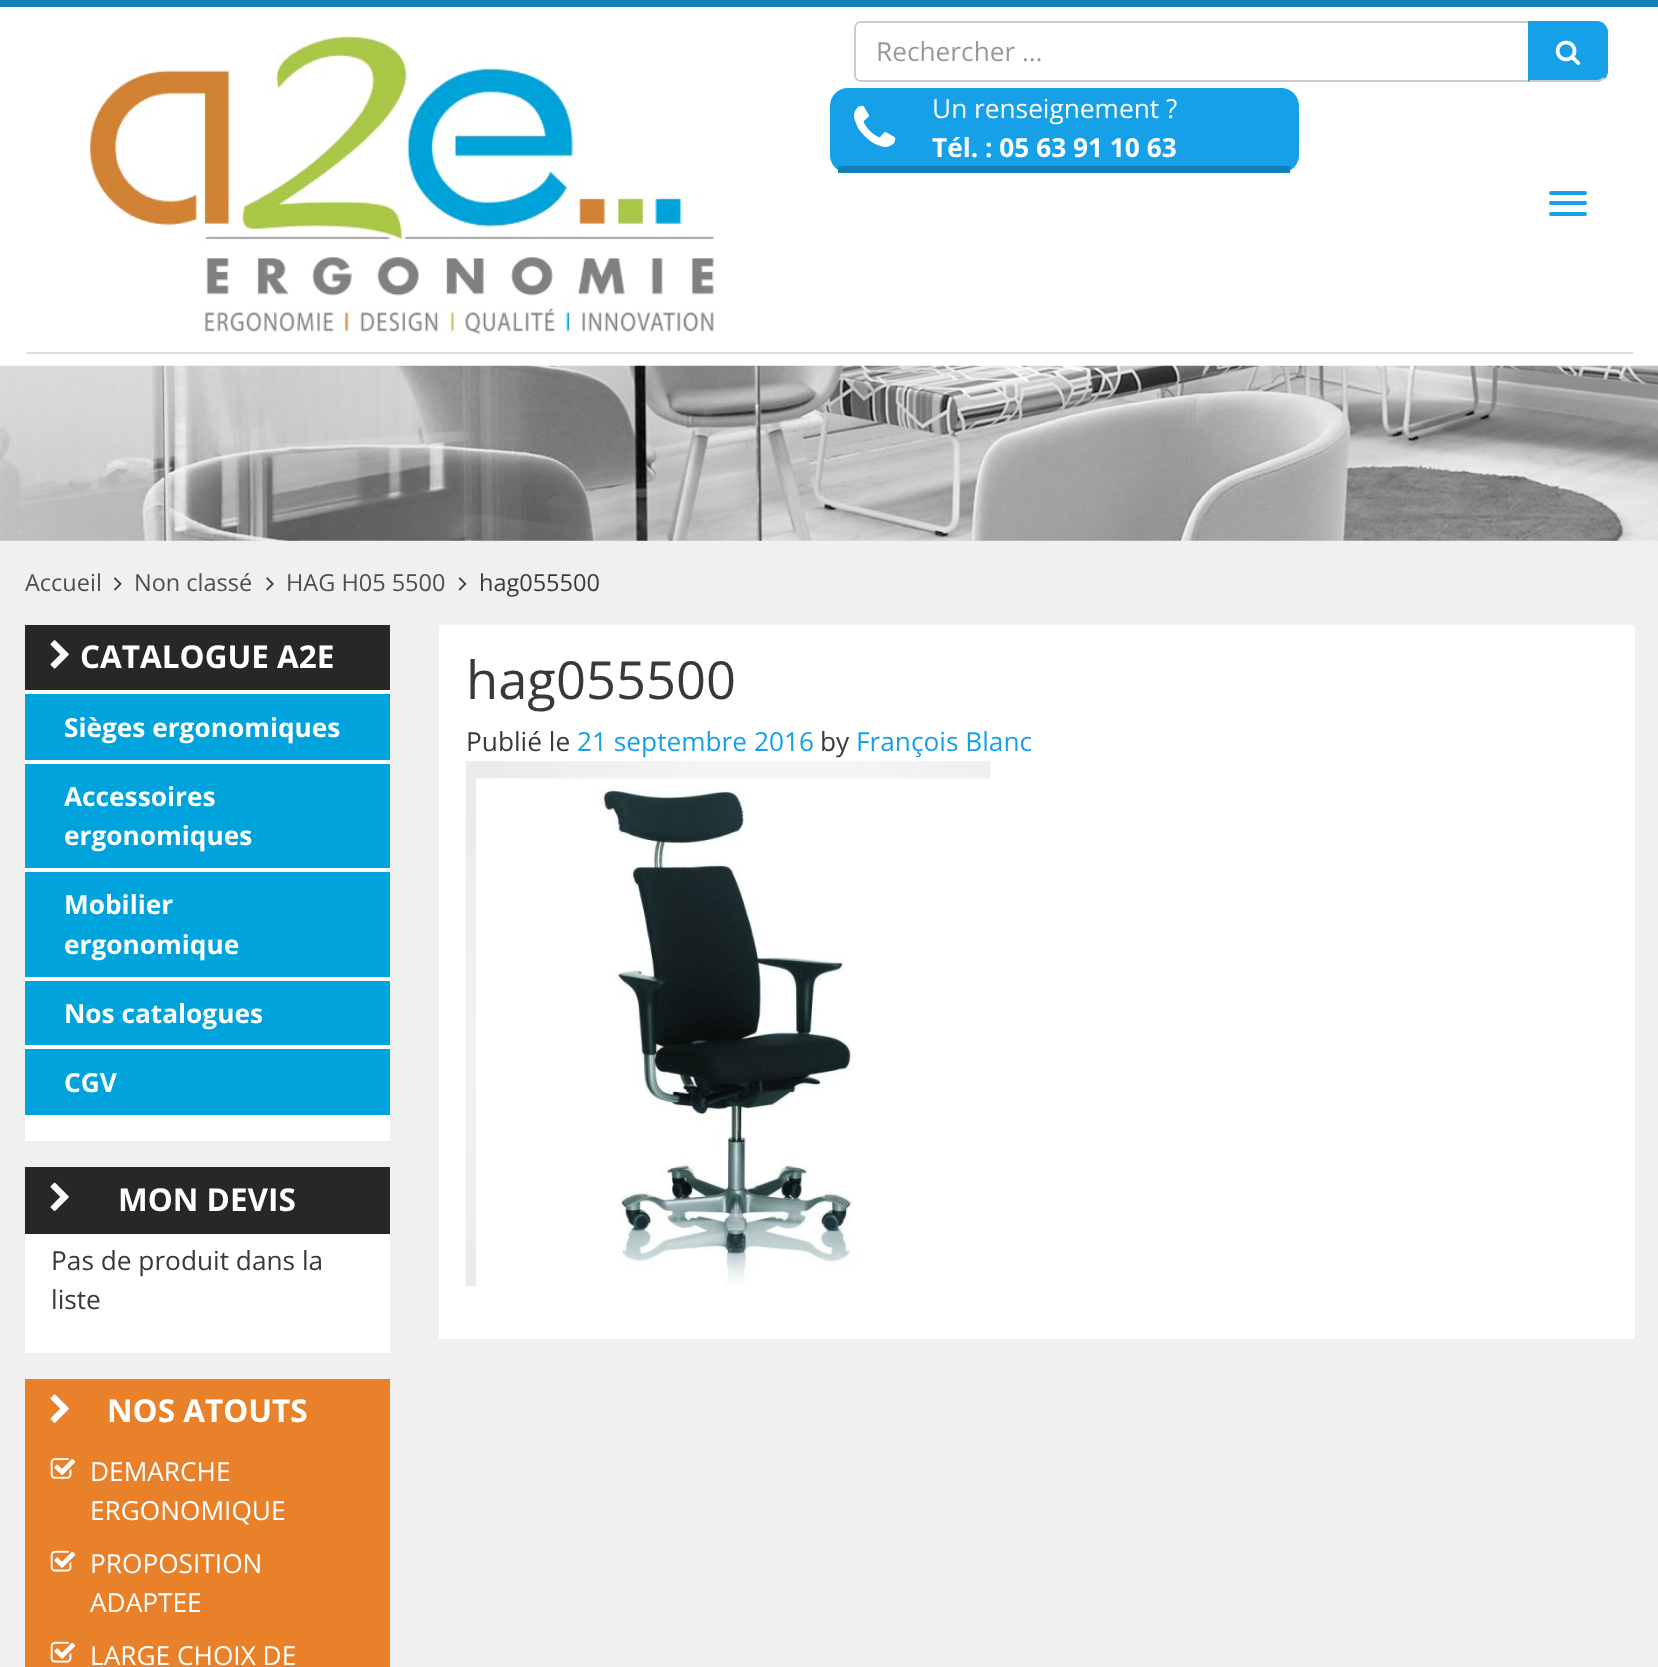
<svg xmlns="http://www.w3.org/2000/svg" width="1658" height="1667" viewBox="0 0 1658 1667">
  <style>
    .t1 { font: 26.25px Open Sans; fill: #999; }
    .t2 { font: 26.25px Open Sans; fill: #fff; }
    .t3 { font: bold 26.25px Open Sans; fill: #fff; }
    .t4 { font: 23.5px Open Sans; fill: #4e4e4e; }
    .t5 { font: 23.5px Open Sans; fill: #373a3c; }
    .t6 { font: bold 31.5px Open Sans; fill: #fff; }
    .t7 { font: 26.25px Open Sans; fill: #373a3c; }
    .t8 { font: 52.5px Open Sans; fill: #373a3c; }
    .t9 { font: 26.25px Open Sans; fill: #16a0e8; }
  </style>
  <rect width="100%" height="100%" fill="#f0f0f0"/>
  <rect x="0" y="7" width="1658" height="359" fill="#fff"/>
  <rect x="0" y="0" width="1658" height="7" fill="#1280b9"/>
  <rect x="26" y="352" width="1607" height="2" fill="#dfdfdf"/>
  <image x="90" y="36" width="624" height="299" href="images/1.png"/>
  <path d="M861 22H1529V81H861C857.5 81 855 78.5 855 75V28C855 24.5 857.5 22 861 22Z" fill="none" stroke="#ccc" stroke-width="2"/>
  <text x="876" y="61" class="t1">Rechercher …</text>
  <path d="M1528 21H1596C1602.5 21 1608 26.5 1608 33V70C1608 76.5 1602.5 82 1596 82H1528Z" fill="#16a0e8"/>
  <path d="M1528 21L1530 23H1596C1599 23 1602 24 1603 26L1605 25C1603 22 1600 21 1596 21Z" fill="#16a0e8"/>
  <path d="M1605 25C1607 27 1608 30 1608 33V70C1608 74 1607 76 1605 79L1603 77C1605 76 1606 73 1606 70V33C1606 30 1605 28 1603 26Z" fill="#16a0e8"/>
  <path d="M1605 79C1602 81 1600 82 1596 82H1528L1530 80H1596C1599 80 1602 79 1603 77Z" fill="#ccc"/>
  <path d="M1528 21V82L1530 80V23Z" fill="#16a0e8"/>
  <image x="1555" y="40" width="26" height="25" href="images/2.png"/>
  <rect x="830" y="88" width="469" height="85" rx="18" fill="#16a0e8"/>
  <rect x="838" y="166" width="452" height="7" fill="#1280b9"/>
  <image x="854" y="105" width="42" height="42" href="images/3.png"/>
  <text x="932" y="118" class="t2">Un renseignement ?</text>
  <text x="932" y="157" class="t3">Tél. : 05 63 91 10 63</text>
  <rect x="1549" y="191" width="38" height="4" rx="2" fill="#16a0e8"/>
  <rect x="1549" y="201" width="38" height="4" rx="2" fill="#16a0e8"/>
  <rect x="1549" y="212" width="38" height="4" rx="2" fill="#16a0e8"/>
  <image x="0" y="365" width="1658" height="176" href="images/4.png"/>
  <text x="25" y="591" class="t4">Accueil</text>
  <image x="114" y="577" width="8" height="14" href="images/5.png"/>
  <text x="134" y="591" class="t4">Non classé</text>
  <image x="266" y="577" width="8" height="14" href="images/6.png"/>
  <text x="286" y="591" class="t4">HAG H05 5500</text>
  <image x="458" y="577" width="9" height="14" href="images/7.png"/>
  <text x="479" y="591" class="t5">hag055500</text>
  <rect x="25" y="1115" width="365" height="26" fill="#fff"/>
  <rect x="25" y="625" width="365" height="65" fill="#272727"/>
  <image x="50" y="640" width="19" height="29" href="images/8.png"/>
  <text x="80" y="668" class="t6">CATALOGUE A2E</text>
  <rect x="25" y="694" width="365" height="66" fill="#00a3dc"/>
  <rect x="25" y="690" width="365" height="4" fill="#fff"/>
  <text x="64" y="737" class="t3">Sièges ergonomiques</text>
  <rect x="25" y="764" width="365" height="104" fill="#00a3dc"/>
  <rect x="25" y="760" width="365" height="4" fill="#fff"/>
  <text x="64" y="806" class="t3">Accessoires</text>
  <text x="64" y="845" class="t3">ergonomiques</text>
  <rect x="25" y="872" width="365" height="105" fill="#00a3dc"/>
  <rect x="25" y="868" width="365" height="4" fill="#fff"/>
  <text x="64" y="914" class="t3">Mobilier</text>
  <text x="64" y="954" class="t3">ergonomique</text>
  <rect x="25" y="981" width="365" height="64" fill="#00a3dc"/>
  <rect x="25" y="977" width="365" height="4" fill="#fff"/>
  <text x="64" y="1023" class="t3">Nos catalogues</text>
  <rect x="25" y="1049" width="365" height="66" fill="#00a3dc"/>
  <rect x="25" y="1045" width="365" height="4" fill="#fff"/>
  <text x="64" y="1092" class="t3">CGV</text>
  <rect x="25" y="1234" width="365" height="119" fill="#fff"/>
  <rect x="25" y="1167" width="365" height="67" fill="#272727"/>
  <image x="50" y="1182" width="19" height="29" href="images/9.png"/>
  <text x="118" y="1211" class="t6">MON DEVIS</text>
  <text x="51" y="1270" class="t7">Pas de produit dans la</text>
  <text x="51" y="1309" class="t7">liste</text>
  <rect x="25" y="1379" width="365" height="288" fill="#e9812a"/>
  <image x="50" y="1394" width="19" height="29" href="images/10.png"/>
  <text x="107" y="1422" class="t6">NOS ATOUTS</text>
  <image x="50" y="1458" width="26" height="21" href="images/11.png"/>
  <text x="90" y="1481" class="t2">DEMARCHE</text>
  <text x="90" y="1520" class="t2">ERGONOMIQUE</text>
  <image x="50" y="1550" width="26" height="22" href="images/12.png"/>
  <text x="90" y="1573" class="t2">PROPOSITION</text>
  <text x="90" y="1612" class="t2">ADAPTEE</text>
  <image x="50" y="1641" width="26" height="22" href="images/12.png"/>
  <text x="90" y="1665" class="t2">LARGE CHOIX DE</text>
  <rect x="439" y="625" width="1196" height="714" fill="#fff"/>
  <text x="466" y="699" class="t8">hag055500</text>
  <text x="466" y="751" class="t7">Publié le</text>
  <text x="577" y="751" class="t9">21 septembre 2016</text>
  <text x="820" y="751" class="t7">by</text>
  <text x="856" y="751" class="t9">François Blanc</text>
  <image x="465" y="761" width="526" height="526" href="images/13.png"/>
</svg>
